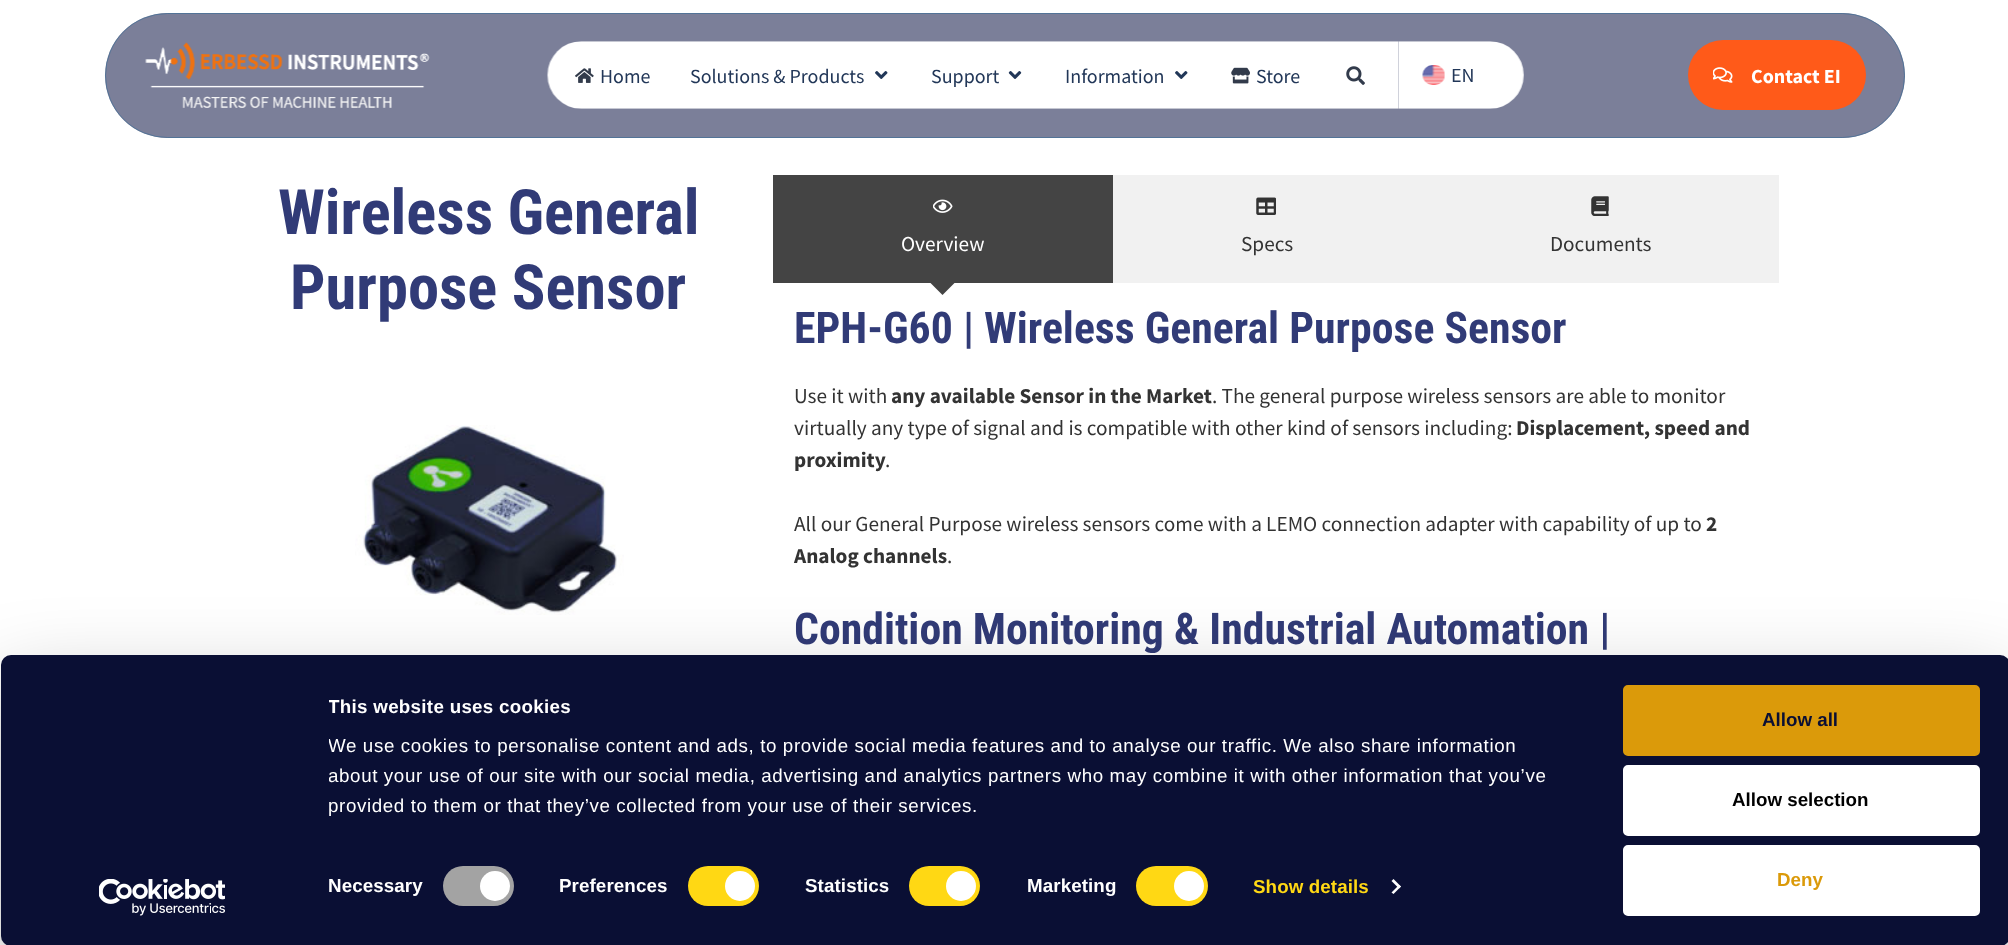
<svg xmlns="http://www.w3.org/2000/svg" width="2008" height="945" viewBox="0 0 2008 945">
  <style>
    .t1 { font: 20px Source Sans Pro; fill: #223758; }
    .t2 { font: bold 20px Source Sans Pro; fill: #fff; }
    .t3 { font: bold 62.5px Roboto Condensed; fill: #313b77; }
    .t4 { font: 21.25px Source Sans Pro; fill: #fff; }
    .t5 { font: 21.25px Source Sans Pro; fill: #333; }
    .t6 { font: bold 43.75px Roboto Condensed; fill: #313b77; }
    .t7 { font: bold 21.25px Source Sans Pro; fill: #333; }
    .t8 { font: bold 18.75px Liberation Sans; letter-spacing: 0.3px; fill: #fff; }
    .t9 { font: 18.75px Liberation Sans; letter-spacing: 0.62px; fill: #fff; }
    .t10 { font: bold 18.75px Liberation Sans; letter-spacing: 0.1px; fill: #fff; }
    .t11 { font: bold 18.75px Liberation Sans; letter-spacing: 0.1px; fill: #ffd814; }
    .t12 { font: bold 18.75px Liberation Sans; fill: #0a0f34; }
    .t13 { font: bold 18.75px Liberation Sans; fill: #000; }
    .t14 { font: bold 18.75px Liberation Sans; fill: #db9a0a; }
  </style>
  <defs>
    <clipPath id="clip1"><rect x="329" y="693" width="1257" height="128"/></clipPath>
  </defs>
  <rect width="100%" height="100%" fill="#fff"/>
  <rect x="105" y="13" width="1800" height="125" rx="62.5" fill="#7b7f99"/>
  <rect x="105.5" y="13.5" width="1799" height="124" rx="62" fill="none" stroke="#426d96b3"/>
  <image x="145" y="42" width="285" height="66" href="images/1.png"/>
  <image x="547" y="41" width="852" height="68" href="images/2.png"/>
  <image x="575" y="68" width="19" height="15" href="images/3.png"/>
  <text x="600" y="83" class="t1">Home</text>
  <text x="690" y="83" class="t1">Solutions &amp; Products</text>
  <image x="875" y="71" width="13" height="8" href="images/4.png"/>
  <text x="931" y="83" class="t1">Support</text>
  <image x="1008" y="71" width="14" height="8" href="images/5.png"/>
  <text x="1065" y="83" class="t1">Information</text>
  <image x="1175" y="71" width="13" height="8" href="images/4.png"/>
  <image x="1231" y="67" width="19" height="17" href="images/6.png"/>
  <text x="1256" y="83" class="t1">Store</text>
  <image x="1346" y="66" width="19" height="19" href="images/7.png"/>
  <image x="1398" y="41" width="126" height="68" href="images/8.png"/>
  <image x="1422" y="65" width="23" height="20" href="images/9.png"/>
  <text x="1451" y="82" class="t1">EN</text>
  <rect x="1688" y="40" width="178" height="70" rx="35" fill="#ff5a19"/>
  <image x="1713" y="67" width="20" height="16" href="images/10.png"/>
  <text x="1751" y="83" class="t2">Contact EI</text>
  <text x="278" y="234" class="t3">Wireless General</text>
  <text x="290" y="309" class="t3">Purpose Sensor</text>
  <image x="355" y="425" width="269" height="190" href="images/11.png"/>
  <rect x="773" y="175" width="340" height="108" fill="#444"/>
  <image x="933" y="199" width="20" height="14" href="images/12.png"/>
  <text x="901" y="251" class="t4">Overview</text>
  <path d="M930 282.5H955L942.5 295Z" fill="#444"/>
  <rect x="1113" y="175" width="666" height="108" fill="#f1f1f1"/>
  <image x="1256" y="197" width="20" height="18" href="images/13.png"/>
  <text x="1241" y="251" class="t5">Specs</text>
  <image x="1591" y="196" width="18" height="20" href="images/14.png"/>
  <text x="1550" y="251" class="t5">Documents</text>
  <text x="794" y="343" class="t6">EPH-G60 | Wireless General Purpose Sensor</text>
  <text x="794" y="403" class="t5">Use it with</text>
  <text x="891" y="403" class="t7">any available Sensor in the Market</text>
  <text x="1212" y="403" class="t5">. The general purpose wireless sensors are able to monitor</text>
  <text x="794" y="435" class="t5">virtually any type of signal and is compatible with other kind of sensors including:</text>
  <text x="1516" y="435" class="t7">Displacement, speed and</text>
  <text x="794" y="467" class="t7">proximity</text>
  <text x="885" y="467" class="t5">.</text>
  <text x="794" y="531" class="t5">All our General Purpose wireless sensors come with a LEMO connection adapter with capability of up to</text>
  <text x="1706" y="531" class="t7">2</text>
  <text x="794" y="563" class="t7">Analog channels</text>
  <text x="947" y="563" class="t5">.</text>
  <text x="794" y="644" class="t6">Condition Monitoring &amp; Industrial Automation |</text>
  <rect x="1" y="693" width="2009" height="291" rx="10" fill="#0000004d" filter="blur(44px)"/>
  <rect x="1" y="655" width="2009" height="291" rx="10" fill="#0a0f34"/>
  <g clip-path="url(#clip1)">
    <text x="328" y="713" class="t8">This website uses cookies</text>
    <text x="328" y="752" class="t9">We use cookies to personalise content and ads, to provide social media features and to analyse our traffic. We also share information</text>
    <text x="328" y="782" class="t9">about your use of our site with our social media, advertising and analytics partners who may combine it with other information that you’ve</text>
    <text x="328" y="812" class="t9">provided to them or that they’ve collected from your use of their services.</text>
  </g>
  <text x="328" y="892" class="t10">Necessary</text>
  <rect x="443" y="866" width="71" height="40" rx="20" fill="#a3a3a3"/>
  <circle cx="495" cy="886" r="15" fill="#fff"/>
  <text x="559" y="892" class="t10">Preferences</text>
  <rect x="688" y="866" width="71" height="40" rx="20" fill="#ffd814"/>
  <circle cx="740" cy="886" r="15" fill="#fff"/>
  <text x="805" y="892" class="t10">Statistics</text>
  <rect x="909" y="866" width="71" height="40" rx="20" fill="#ffd814"/>
  <circle cx="961" cy="886" r="15" fill="#fff"/>
  <text x="1027" y="892" class="t10">Marketing</text>
  <rect x="1136" y="866" width="72" height="40" rx="20" fill="#ffd814"/>
  <circle cx="1189" cy="886" r="15" fill="#fff"/>
  <text x="1253" y="893" class="t11">Show details</text>
  <path d="M1393.5 879L1401 886.5L1399 888.5L1391.5 881Z" fill="#fff"/>
  <path d="M1399 885L1401 886.5L1393.5 894L1391.5 892.5Z" fill="#fff"/>
  <rect x="1624.5" y="686.5" width="354" height="68" rx="3.5" fill="#db9a0a" stroke="#db9a0a" stroke-width="3"/>
  <text x="1762" y="726" class="t12">Allow all</text>
  <rect x="1624.5" y="766.5" width="354" height="68" rx="3.5" fill="#fff" stroke="#fff" stroke-width="3"/>
  <text x="1732" y="806" class="t13">Allow selection</text>
  <rect x="1624.5" y="846.5" width="354" height="68" rx="3.5" fill="#fff" stroke="#fff" stroke-width="3"/>
  <text x="1777" y="886" class="t14">Deny</text>
  <image x="99" y="879" width="126" height="37" href="images/15.png"/>
</svg>
